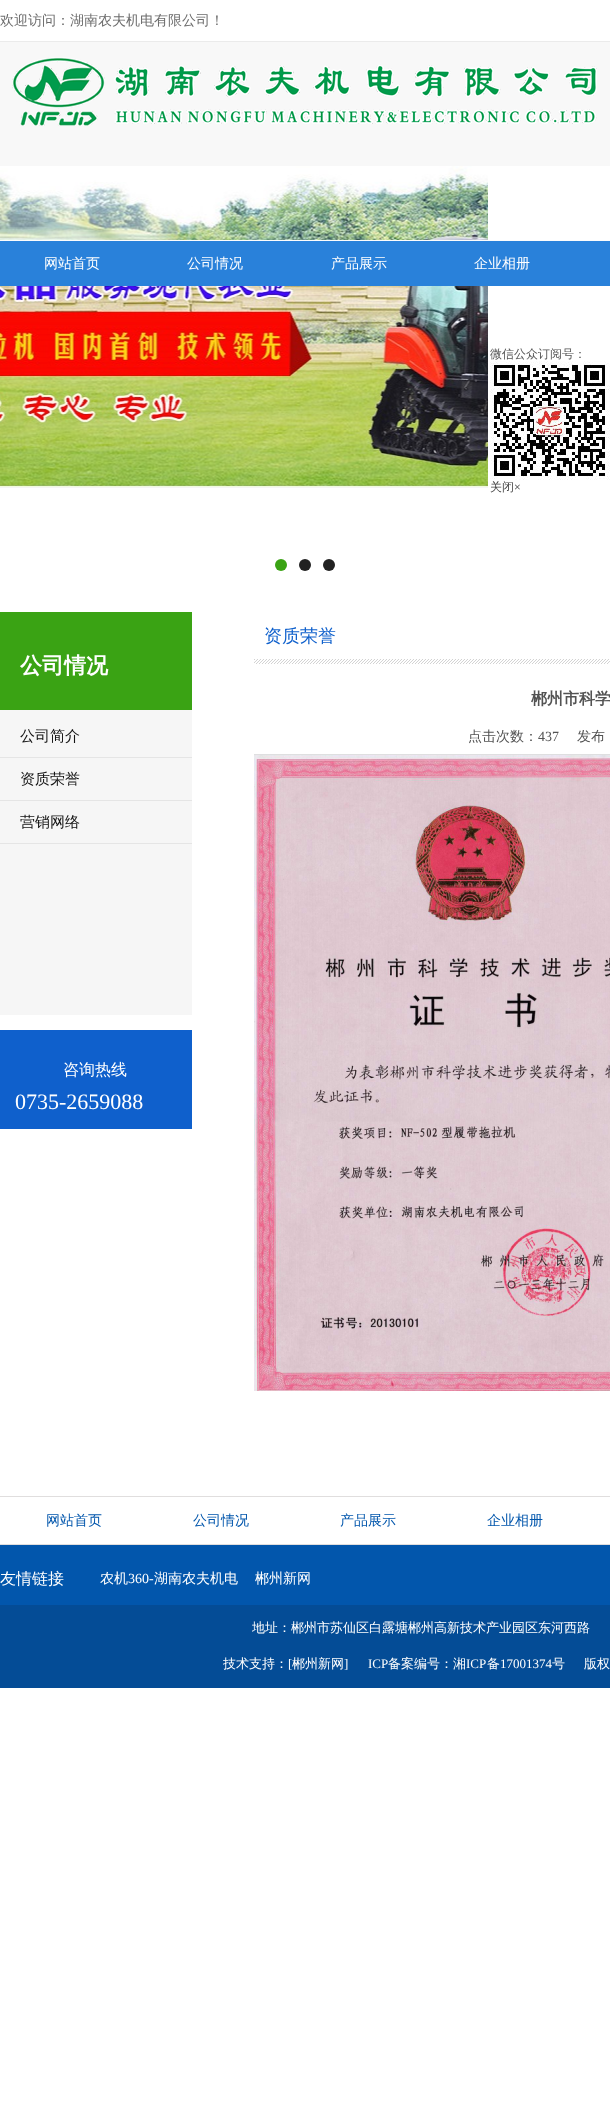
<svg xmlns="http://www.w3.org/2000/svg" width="610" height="2106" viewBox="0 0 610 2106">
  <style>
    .t1 { font: 500 14px WenQuanYi Zen Hei; fill: #6c6c6c; }
    .t2 { font: 500 14px WenQuanYi Zen Hei; fill: #fff; }
    .t3 { font: 500 12px WenQuanYi Zen Hei; fill: #535353; }
    .t4 { font: 500 12px WenQuanYi Zen Hei; fill: #444; }
    .t5 { font: 12px Liberation Serif; fill: #444; }
    .t6 { font: bold 22px WenQuanYi Zen Hei; fill: #fff; }
    .t7 { font: 500 15px WenQuanYi Zen Hei; fill: #131313; }
    .t8 { font: 500 16px WenQuanYi Zen Hei; fill: #fff; }
    .t9 { font: 22px Liberation Serif; fill: #fff; }
    .t10 { font: 500 18px WenQuanYi Zen Hei; fill: #0f60cc; }
    .t11 { font: bold 16px WenQuanYi Zen Hei; fill: #535353; }
    .t12 { font: 500 14px WenQuanYi Zen Hei; fill: #535353; }
    .t13 { font: 14px Liberation Serif; fill: #535353; }
    .t14 { font: 500 14px WenQuanYi Zen Hei; fill: #0256ac; }
    .t15 { font: 14px Liberation Serif; fill: #fff; }
    .t16 { font: 500 13px WenQuanYi Zen Hei; fill: #fff; }
    .t17 { font: 13px Liberation Serif; fill: #fff; }
  </style>
  <rect width="100%" height="100%" fill="#fff"/>
  <rect x="0" y="41" width="610" height="1" fill="#ebebeb"/>
  <text x="0" y="25" class="t1">欢迎访问：湖南农夫机电有限公司！</text>
  <rect x="0" y="42" width="610" height="124" fill="#f8f8f8"/>
  <image x="12" y="57" width="585" height="69" href="images/1.png"/>
  <image x="0" y="166" width="488" height="322" href="images/2.png"/>
  <circle cx="281" cy="565" r="6" fill="#3aa314"/>
  <circle cx="305" cy="565" r="6" fill="#222"/>
  <circle cx="329" cy="565" r="6" fill="#222"/>
  <rect x="0" y="241" width="610" height="45" fill="#2981da"/>
  <rect x="0" y="240" width="610" height="1" fill="#fcfcfc"/>
  <text x="44" y="268" class="t2">网站首页</text>
  <text x="187" y="268" class="t2">公司情况</text>
  <text x="331" y="268" class="t2">产品展示</text>
  <text x="474" y="268" class="t2">企业相册</text>
  <text x="490" y="358" class="t3">微信公众订阅号：</text>
  <image x="490" y="361" width="120" height="119" href="images/3.png"/>
  <text x="490" y="491" class="t4">关闭</text>
  <text x="514" y="491" class="t5">×</text>
  <rect x="0" y="612" width="192" height="98" fill="#3aa314"/>
  <text x="20" y="673" class="t6">公司情况</text>
  <rect x="0" y="710" width="192" height="305" fill="#f6f6f6"/>
  <rect x="0" y="757" width="192" height="1" fill="#e5e5e5"/>
  <text x="20" y="741" class="t7">公司简介</text>
  <rect x="0" y="800" width="192" height="1" fill="#e5e5e5"/>
  <text x="20" y="784" class="t7">资质荣誉</text>
  <rect x="0" y="843" width="192" height="1" fill="#e5e5e5"/>
  <text x="20" y="827" class="t7">营销网络</text>
  <rect x="0" y="1030" width="192" height="99" fill="#0f60cc"/>
  <text x="63" y="1075" class="t8">咨询热线</text>
  <text x="15" y="1109" class="t9">0735-2659088</text>
  <image x="254" y="659" width="356" height="5" href="images/4.png"/>
  <text x="264" y="642" class="t10">资质荣誉</text>
  <text x="531" y="704" class="t11">郴州市科学</text>
  <text x="468" y="741" class="t12">点击次数：</text>
  <text x="538" y="741" class="t13">437</text>
  <text x="577" y="741" class="t12">发布</text>
  <rect x="254" y="754" width="356" height="1" fill="#dfdfe0"/>
  <image x="254" y="755" width="356" height="636" href="images/5.png"/>
  <rect x="0" y="1496" width="610" height="1" fill="#e0dede"/>
  <rect x="0" y="1544" width="610" height="1" fill="#e0dede"/>
  <text x="46" y="1525" class="t14">网站首页</text>
  <text x="193" y="1525" class="t14">公司情况</text>
  <text x="340" y="1525" class="t14">产品展示</text>
  <text x="487" y="1525" class="t14">企业相册</text>
  <rect x="0" y="1545" width="610" height="60" fill="#0256ac"/>
  <text x="0" y="1584" class="t8">友情链接</text>
  <text x="100" y="1583" class="t2">农机</text>
  <text x="128" y="1583" class="t15">360-</text>
  <text x="154" y="1583" class="t2">湖南农夫机电</text>
  <text x="255" y="1583" class="t2">郴州新网</text>
  <rect x="0" y="1605" width="610" height="83" fill="#044c96"/>
  <text x="252" y="1632" class="t16">地址：郴州市苏仙区白露塘郴州高新技术产业园区东河西路</text>
  <text x="223" y="1668" class="t16">技术支持：</text>
  <text x="288" y="1668" class="t17">[</text>
  <text x="292" y="1668" class="t16">郴州新网</text>
  <text x="344" y="1668" class="t17">]</text>
  <text x="368" y="1668" class="t17">ICP</text>
  <text x="388" y="1668" class="t16">备案编号：湘</text>
  <text x="466" y="1668" class="t17">ICP</text>
  <text x="487" y="1668" class="t16">备</text>
  <text x="500" y="1668" class="t17">17001374</text>
  <text x="552" y="1668" class="t16">号</text>
  <text x="584" y="1668" class="t16">版权</text>
</svg>
